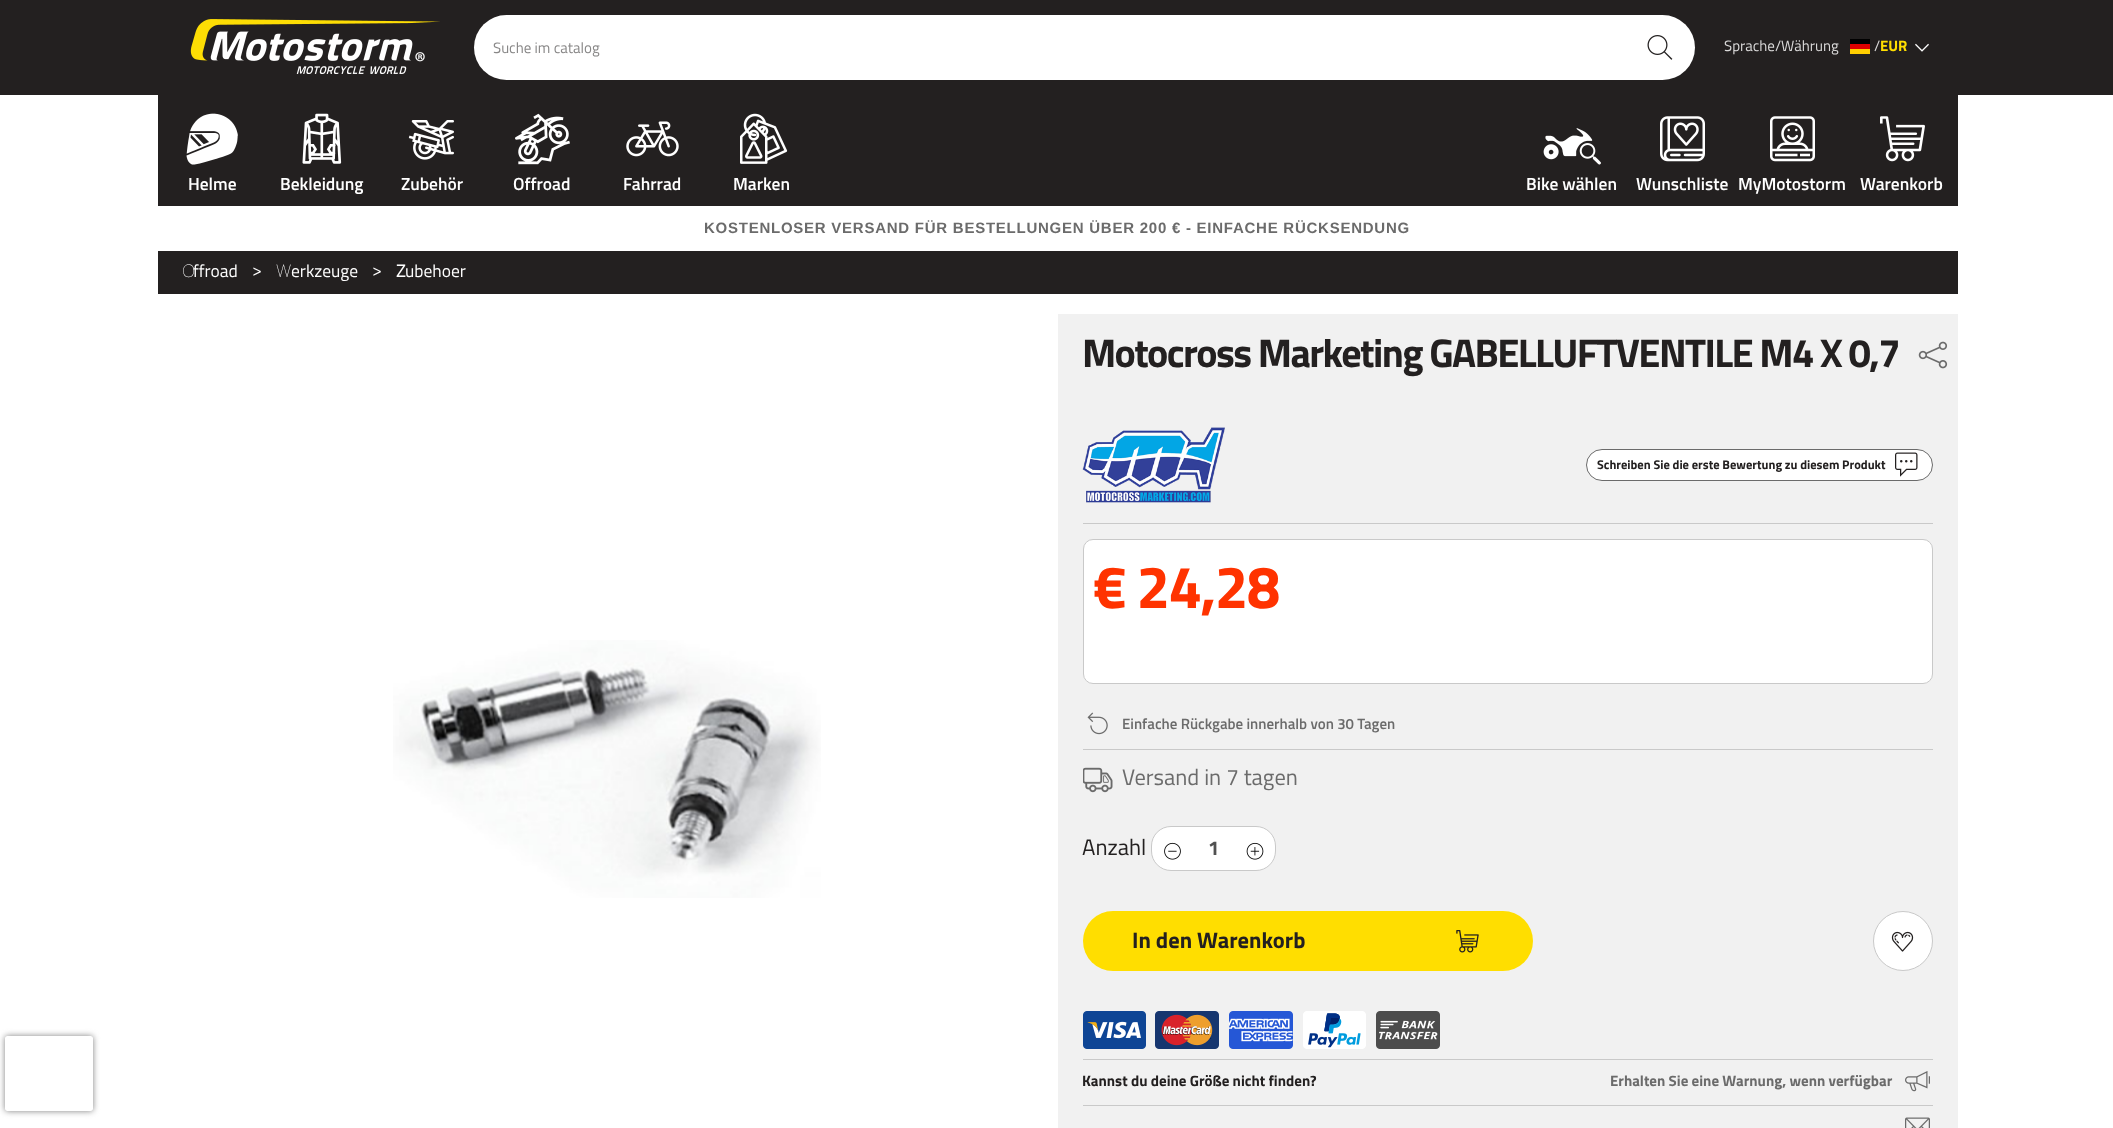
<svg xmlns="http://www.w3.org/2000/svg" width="2113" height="1128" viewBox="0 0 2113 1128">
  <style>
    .t1 { font: 15px Titillium Web; fill: #888787; }
    .t2 { font: 15px Titillium Web; fill: #dad9d9; }
    .t3 { font: bold 15px Titillium Web; fill: #ffde00; }
    .t4 { font: 600 17.5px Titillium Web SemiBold; fill: #fff; }
    .t5 { font: bold 15px Liberation Sans; letter-spacing: 0.75px; fill: #6b6b6b; }
    .t6 { font: 100 17.5px Noto Sans; fill: #fff; }
    .t7 { font: 17.5px Titillium Web; fill: #fff; }
    .t8 { font: 17.5px Noto Sans; fill: #fff; }
    .t9 { font: bold 40px Titillium Web; letter-spacing: -1.6px; fill: #232020; }
    .t10 { font: bold 12.5px Titillium Web; fill: #232020; }
    .t11 { font: bold 60px Titillium Web; letter-spacing: -1.6px; fill: #f30; }
    .t12 { font: 600 15px Titillium Web SemiBold; fill: #6b6b6b; }
    .t13 { font: 22.5px Titillium Web; fill: #6b6b6b; }
    .t14 { font: 22.5px Titillium Web; fill: #232020; }
    .t15 { font: bold 20px Titillium Web; fill: #515151; }
    .t16 { font: bold 22.5px Titillium Web; fill: #232020; }
    .t17 { font: bold 15px Titillium Web; fill: #232020; }
    .t18 { font: bold 15px Titillium Web; fill: #6b6b6b; }
  </style>
  <defs>
    <clipPath id="clip1"><path d="M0 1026H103V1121H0ZM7.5 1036H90.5C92 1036 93 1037 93 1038.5V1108.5C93 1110 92 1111 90.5 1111H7.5C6 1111 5 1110 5 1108.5V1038.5C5 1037 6 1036 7.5 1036Z" clip-rule="evenodd"/></clipPath>
  </defs>
  <rect width="100%" height="100%" fill="#fff"/>
  <rect x="0" y="0" width="2113" height="95" fill="#232020"/>
  <image x="190" y="19" width="250" height="55" href="images/1.png"/>
  <rect x="474" y="15" width="1221" height="65" rx="32.5" fill="#fff"/>
  <text x="493" y="53" class="t1">Suche im catalog</text>
  <image x="1647" y="35" width="26" height="25" href="images/2.png"/>
  <text x="1724" y="51" class="t2">Sprache/Währung</text>
  <rect x="1850" y="39" width="20" height="5" fill="#000"/>
  <rect x="1850" y="44" width="20" height="5" fill="#d00"/>
  <rect x="1850" y="49" width="20" height="5" fill="#ffce00"/>
  <text x="1874" y="51" class="t2">/</text>
  <text x="1880" y="51" class="t3">EUR</text>
  <image x="1915" y="43" width="14" height="9" href="images/3.png"/>
  <g clip-path="url(#clip1)">
    <rect x="5" y="1036" width="88" height="75" rx="2.5" fill="#808080" filter="blur(3px)"/>
  </g>
  <rect x="158" y="95" width="1800" height="111" fill="#232020"/>
  <image x="186" y="113" width="52" height="52" href="images/4.png"/>
  <text x="188" y="190" class="t4">Helme</text>
  <image x="302" y="113" width="40" height="51" href="images/5.png"/>
  <text x="280" y="190" class="t4">Bekleidung</text>
  <image x="408" y="120" width="46" height="40" href="images/6.png"/>
  <text x="401" y="190" class="t4">Zubehör</text>
  <image x="515" y="113" width="55" height="52" href="images/7.png"/>
  <text x="513" y="190" class="t4">Offroad</text>
  <image x="626" y="121" width="53" height="36" href="images/8.png"/>
  <text x="623" y="190" class="t4">Fahrrad</text>
  <image x="740" y="113" width="48" height="51" href="images/9.png"/>
  <text x="733" y="190" class="t4">Marken</text>
  <image x="1543" y="128" width="58" height="37" href="images/10.png"/>
  <text x="1526" y="190" class="t4">Bike wählen</text>
  <image x="1660" y="116" width="45" height="46" href="images/11.png"/>
  <text x="1636" y="190" class="t4">Wunschliste</text>
  <image x="1770" y="116" width="45" height="46" href="images/12.png"/>
  <text x="1738" y="190" class="t4">MyMotostorm</text>
  <image x="1880" y="116" width="45" height="46" href="images/13.png"/>
  <text x="1860" y="190" class="t4">Warenkorb</text>
  <text x="704" y="233" class="t5">KOSTENLOSER VERSAND FÜR BESTELLUNGEN ÜBER 200 € - EINFACHE RÜCKSENDUNG</text>
  <rect x="158" y="251" width="1800" height="43" fill="#232020"/>
  <text x="182" y="277" class="t6">O</text>
  <text x="193" y="277" class="t7">ffroad</text>
  <text x="252" y="276" class="t7">&gt;</text>
  <text x="276" y="277" class="t6">W</text>
  <text x="291" y="277" class="t7">erkzeuge</text>
  <text x="372" y="276" class="t7">&gt;</text>
  <text x="396" y="277" class="t8">Z</text>
  <text x="405" y="277" class="t7">ubehoer</text>
  <rect x="1058" y="314" width="900" height="385" fill="#f1f1f1"/>
  <text x="1082" y="367" class="t9">Motocross Marketing GABELLUFTVENTILE M4 X 0,7</text>
  <image x="1918" y="341" width="30" height="28" href="images/14.png"/>
  <rect x="1083" y="523" width="850" height="1" fill="#c9c9c9"/>
  <image x="1082" y="427" width="143" height="76" href="images/15.png"/>
  <rect x="1586.5" y="449.5" width="346" height="31" rx="15.5" fill="#fff" stroke="#6b6b6b"/>
  <text x="1597" y="469" class="t10">Schreiben Sie die erste Bewertung zu diesem Produkt</text>
  <image x="1895" y="452" width="23" height="25" href="images/16.png"/>
  <rect x="1083.5" y="539.5" width="849" height="144" rx="9.5" fill="#fff" stroke="#c9c9c9"/>
  <text x="1093" y="608" class="t11">€ 24,28</text>
  <image x="393" y="640" width="428" height="258" href="images/17.png"/>
  <rect x="1058" y="699" width="900" height="429" fill="#f1f1f1"/>
  <rect x="1083" y="749" width="850" height="1" fill="#c9c9c9"/>
  <image x="1087" y="712" width="21" height="23" href="images/18.png"/>
  <text x="1122" y="729" class="t12">Einfache Rückgabe innerhalb von 30 Tagen</text>
  <image x="1083" y="767" width="30" height="26" href="images/19.png"/>
  <text x="1122" y="785" class="t13">Versand in 7 tagen</text>
  <text x="1082" y="855" class="t14">Anzahl</text>
  <rect x="1151.5" y="826.5" width="124" height="44" rx="19.5" fill="#fff" stroke="#c9c9c9"/>
  <image x="1164" y="842" width="17" height="18" href="images/20.png"/>
  <text x="1208" y="855" class="t15">1</text>
  <image x="1246" y="842" width="18" height="18" href="images/21.png"/>
  <rect x="1083" y="911" width="450" height="60" rx="30" fill="#ffde00"/>
  <text x="1132" y="948" class="t16">In den Warenkorb</text>
  <image x="1456" y="930" width="23" height="23" href="images/22.png"/>
  <circle cx="1903" cy="941" r="29.5" fill="#fff" stroke="#c9c9c9"/>
  <image x="1891" y="931" width="23" height="21" href="images/23.png"/>
  <image x="1083" y="1011" width="63" height="38" href="images/24.png"/>
  <image x="1155" y="1011" width="64" height="38" href="images/25.png"/>
  <image x="1229" y="1011" width="64" height="38" href="images/26.png"/>
  <image x="1303" y="1011" width="63" height="38" href="images/27.png"/>
  <image x="1376" y="1011" width="64" height="38" href="images/28.png"/>
  <rect x="1083" y="1059" width="850" height="1" fill="#c9c9c9"/>
  <text x="1082" y="1086" class="t17">Kannst du deine Größe nicht finden?</text>
  <text x="1610" y="1086" class="t18">Erhalten Sie eine Warnung, wenn verfügbar</text>
  <image x="1905" y="1071" width="25" height="21" href="images/29.png"/>
  <rect x="1083" y="1105" width="850" height="1" fill="#c9c9c9"/>
  <image x="1905" y="1117" width="25" height="11" href="images/30.png"/>
</svg>
